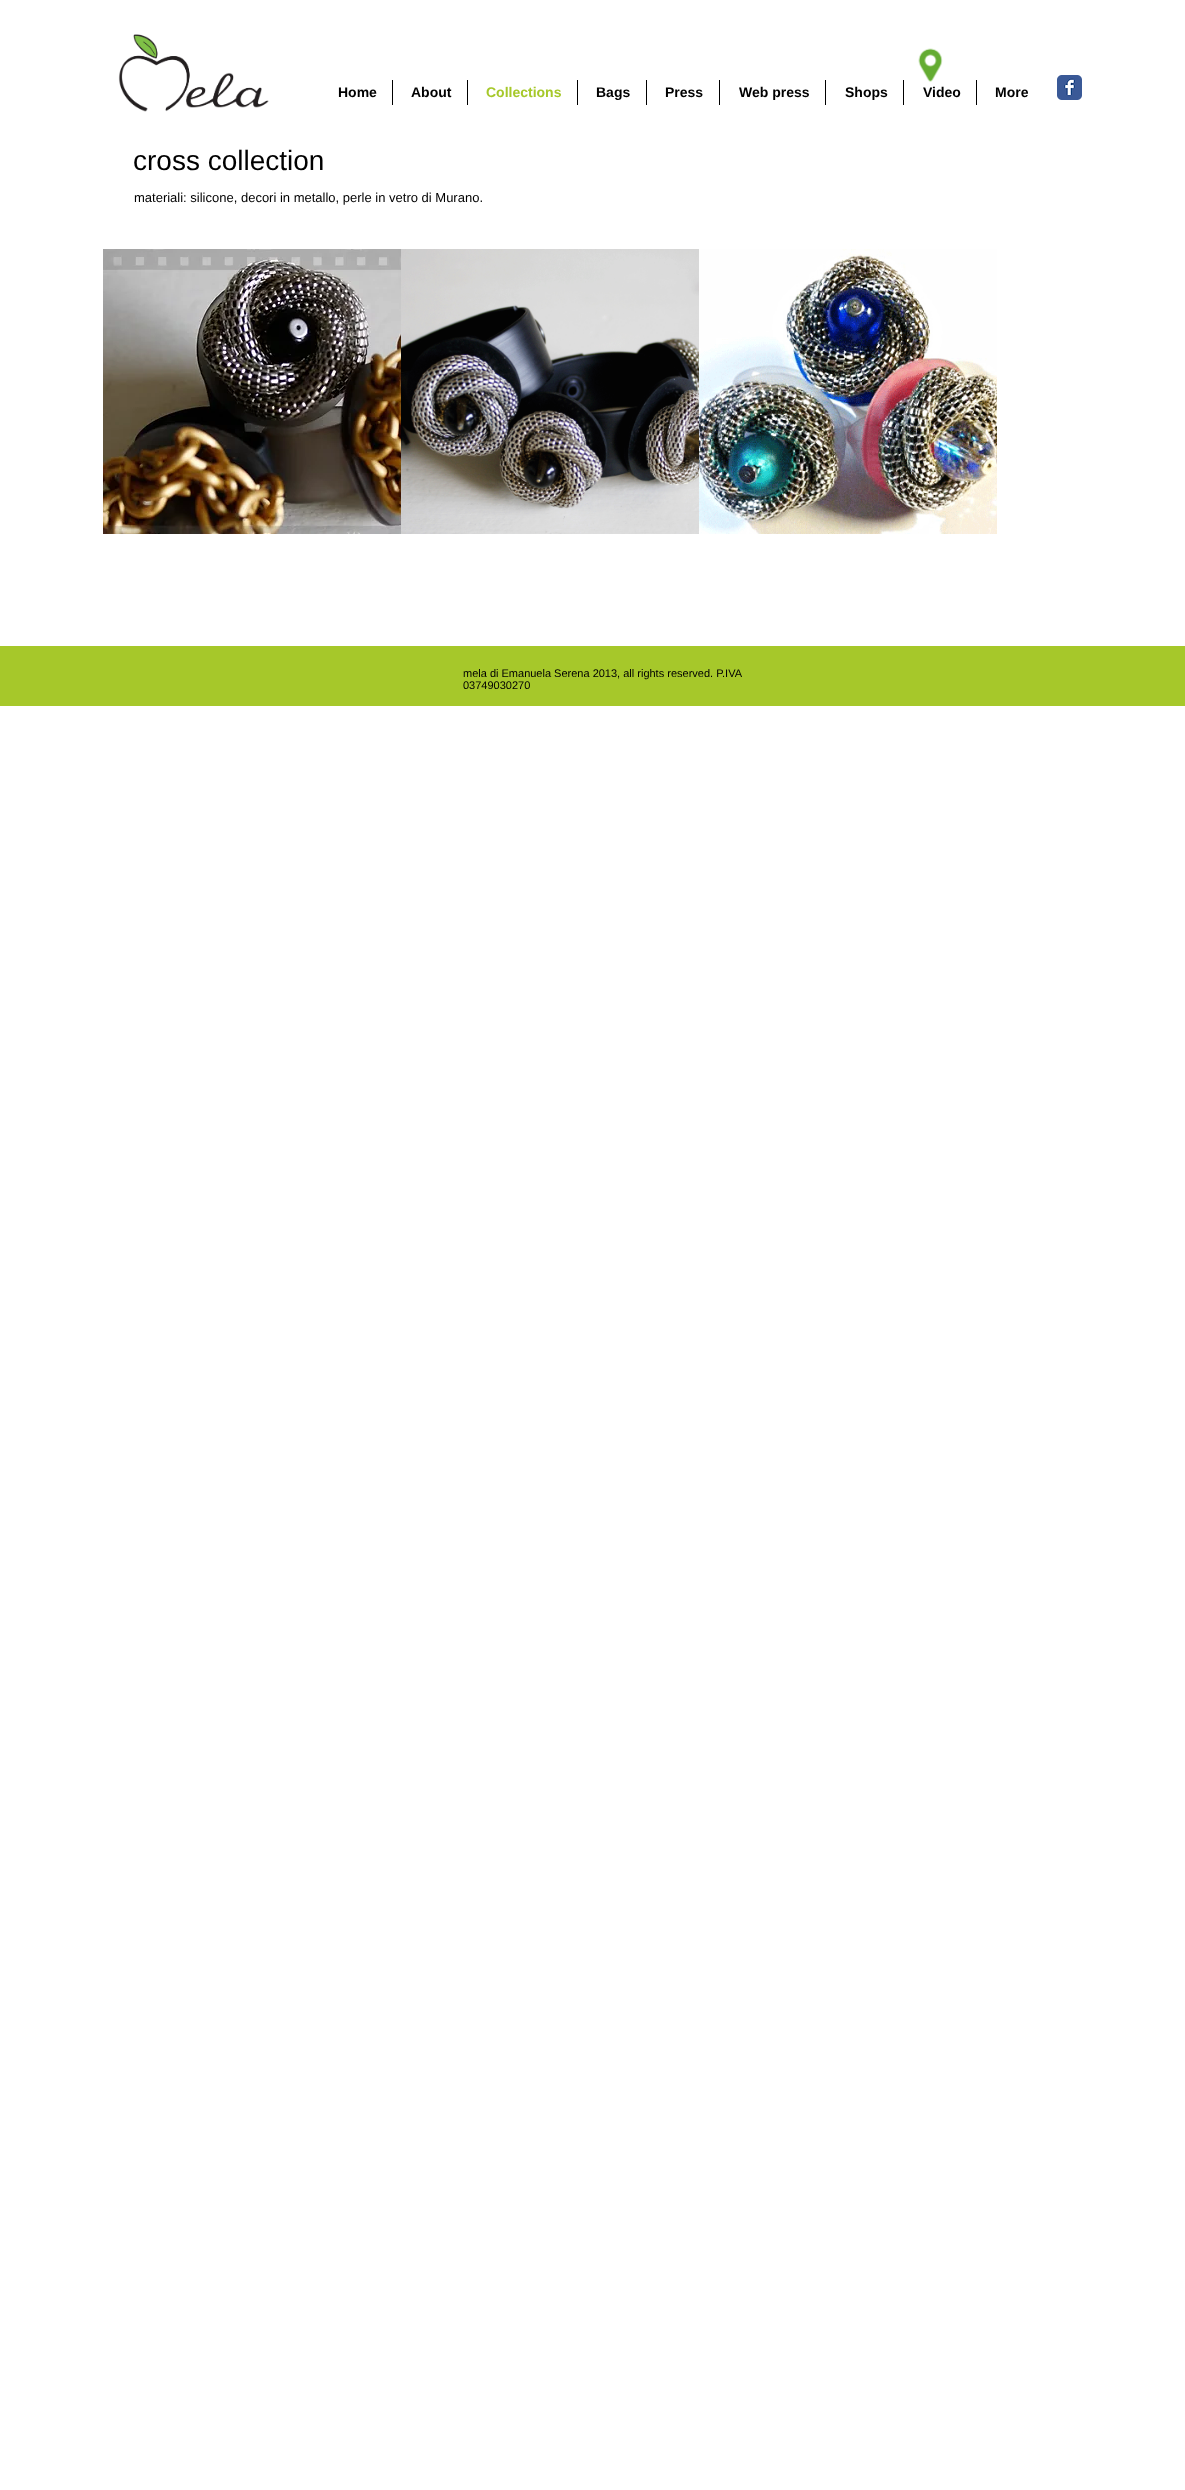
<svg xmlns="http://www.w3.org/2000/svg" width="1185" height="2490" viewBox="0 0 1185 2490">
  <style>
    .t1 { font: bold 14px Liberation Sans; fill: #000; }
    .t2 { font: bold 14px Liberation Sans; fill: #a6c82a; }
    .t3 { font: 28px Liberation Sans; fill: #000; }
    .t4 { font: 13px Liberation Sans; fill: #000; }
    .t5 { font: 11px Liberation Sans; fill: #000; }
  </style>
  <rect width="100%" height="100%" fill="#fff"/>
  <image x="118" y="34" width="151" height="78" href="images/1.png"/>
  <image x="918" y="48" width="25" height="34" href="images/2.png"/>
  <text x="338" y="97" class="t1">Home</text>
  <rect x="392" y="80" width="1" height="25" fill="#000"/>
  <text x="411" y="97" class="t1">About</text>
  <rect x="467" y="80" width="1" height="25" fill="#000"/>
  <text x="486" y="97" class="t2">Collections</text>
  <rect x="577" y="80" width="1" height="25" fill="#000"/>
  <text x="596" y="97" class="t1">Bags</text>
  <rect x="646" y="80" width="1" height="25" fill="#000"/>
  <text x="665" y="97" class="t1">Press</text>
  <rect x="719" y="80" width="1" height="25" fill="#000"/>
  <text x="739" y="97" class="t1">Web press</text>
  <rect x="825" y="80" width="1" height="25" fill="#000"/>
  <text x="845" y="97" class="t1">Shops</text>
  <rect x="903" y="80" width="1" height="25" fill="#000"/>
  <text x="923" y="97" class="t1">Video</text>
  <rect x="976" y="80" width="1" height="25" fill="#000"/>
  <text x="995" y="97" class="t1">More</text>
  <image x="1057" y="75" width="25" height="25" href="images/3.png"/>
  <text x="133" y="170" class="t3">cross collection</text>
  <text x="134" y="202" class="t4">materiali: silicone, decori in metallo, perle in vetro di Murano.</text>
  <image x="103" y="249" width="298" height="285" href="images/4.png"/>
  <image x="401" y="249" width="298" height="285" href="images/5.png"/>
  <image x="699" y="249" width="298" height="285" href="images/6.png"/>
  <rect x="0" y="646" width="1185" height="60" fill="#a6c82a"/>
  <text x="463" y="677" class="t5">mela di Emanuela Serena 2013, all rights reserved. P.IVA</text>
  <text x="463" y="689" class="t5">03749030270</text>
</svg>
